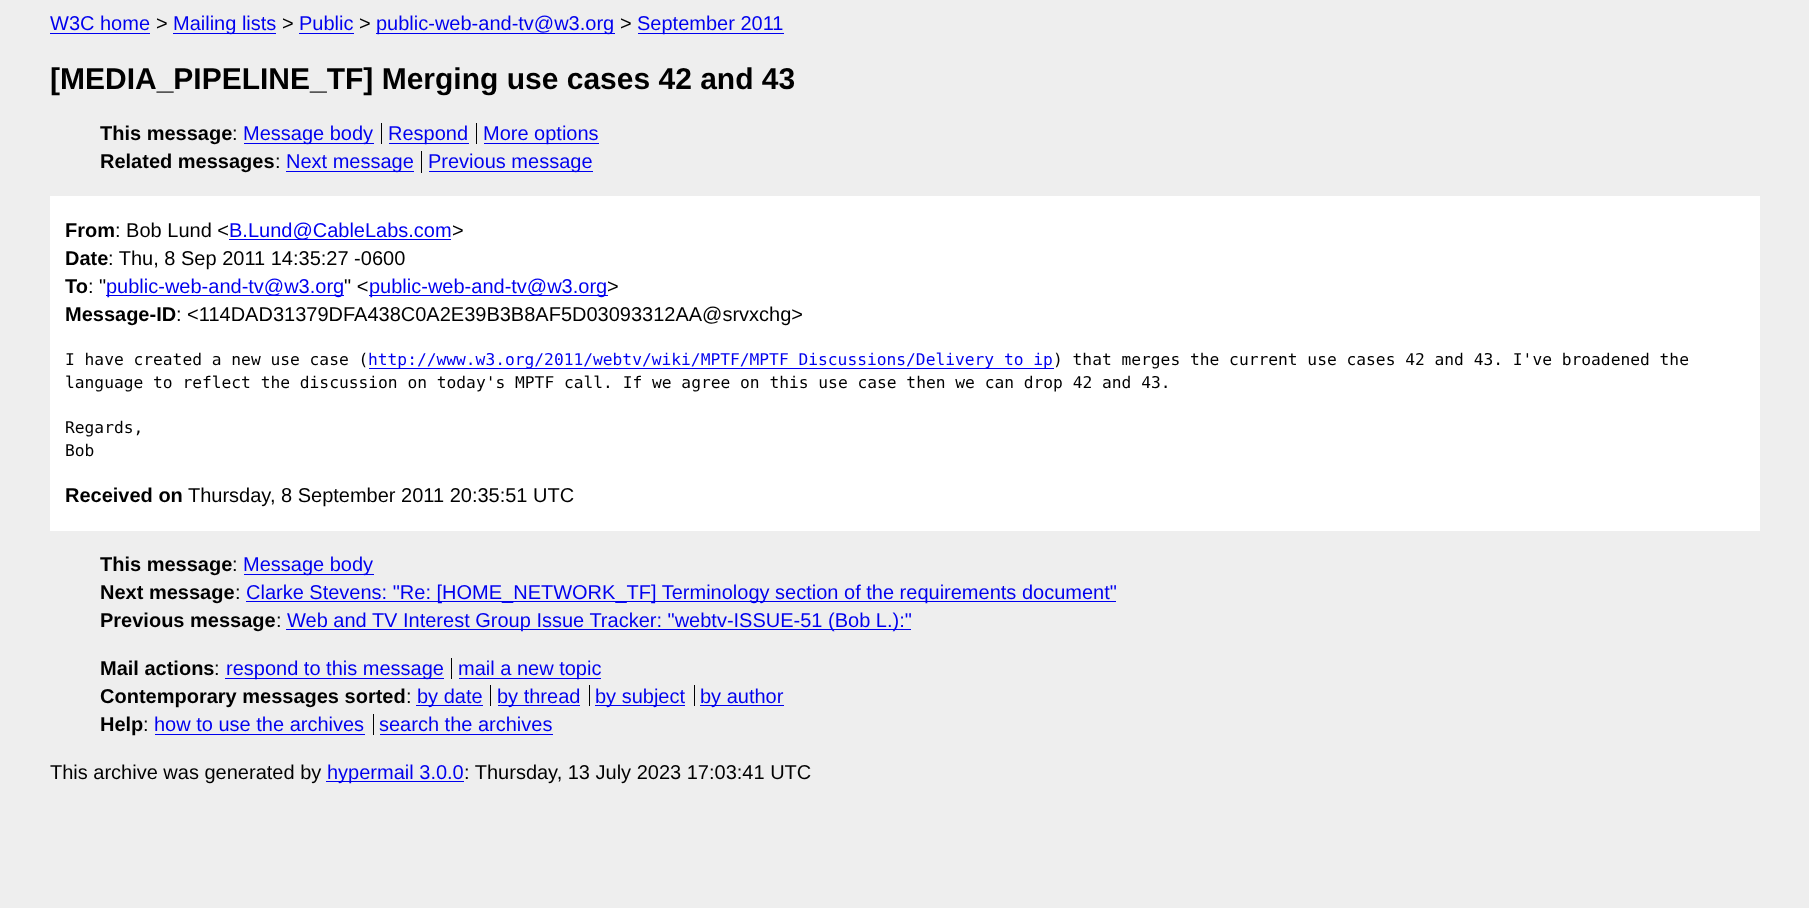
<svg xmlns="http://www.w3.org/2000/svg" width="1809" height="908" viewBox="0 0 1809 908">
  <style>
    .t1 { font: 20px Liberation Sans; fill: #00e; }
    .t2 { font: 20px Liberation Sans; fill: #000; }
    .t3 { font: bold 30px Liberation Sans; fill: #000; }
    .t4 { font: bold 20px Liberation Sans; fill: #000; }
    .t5 { font: 16.25px DejaVu Sans Mono; fill: #000; }
    .t6 { font: 16.25px DejaVu Sans Mono; fill: #00e; }
  </style>
  <rect width="100%" height="100%" fill="#eee"/>
  <text x="50" y="30" class="t1">W3C home</text>
  <rect x="50" y="33" width="100" height="1" fill="#00e"/>
  <text x="156" y="30" class="t2">&gt;</text>
  <rect x="173" y="33" width="103" height="1" fill="#00e"/>
  <text x="173" y="30" class="t1">Mailing lists</text>
  <text x="282" y="30" class="t2">&gt;</text>
  <text x="299" y="30" class="t1">Public</text>
  <rect x="299" y="33" width="55" height="1" fill="#00e"/>
  <text x="359" y="30" class="t2">&gt;</text>
  <rect x="376" y="33" width="239" height="1" fill="#00e"/>
  <text x="376" y="30" class="t1">public-web-and-tv@w3.org</text>
  <text x="620" y="30" class="t2">&gt;</text>
  <rect x="638" y="33" width="146" height="1" fill="#00e"/>
  <text x="637" y="30" class="t1">September 2011</text>
  <text x="50" y="89" class="t3">[MEDIA_PIPELINE_TF] Merging use cases 42 and 43</text>
  <text x="100" y="140" class="t4">This message</text>
  <text x="232" y="140" class="t2">:</text>
  <rect x="244" y="143" width="130" height="1" fill="#00e"/>
  <text x="243" y="140" class="t1">Message body</text>
  <rect x="381" y="123" width="1" height="21" fill="#000"/>
  <rect x="389" y="143" width="80" height="1" fill="#00e"/>
  <text x="388" y="140" class="t1">Respond</text>
  <rect x="484" y="143" width="115" height="1" fill="#00e"/>
  <text x="483" y="140" class="t1">More options</text>
  <rect x="476" y="123" width="1" height="21" fill="#000"/>
  <text x="100" y="168" class="t4">Related messages</text>
  <text x="275" y="168" class="t2">:</text>
  <rect x="286" y="171" width="128" height="1" fill="#00e"/>
  <text x="286" y="168" class="t1">Next message</text>
  <rect x="429" y="171" width="164" height="1" fill="#00e"/>
  <text x="428" y="168" class="t1">Previous message</text>
  <rect x="421" y="151" width="1" height="22" fill="#000"/>
  <rect x="50" y="196" width="1710" height="335" fill="#fff"/>
  <text x="65" y="237" class="t4">From</text>
  <text x="115" y="237" class="t2">: Bob Lund &lt;</text>
  <rect x="229" y="239" width="222" height="1" fill="#00e"/>
  <text x="229" y="237" class="t1">B.Lund@CableLabs.com</text>
  <text x="452" y="237" class="t2">&gt;</text>
  <text x="65" y="265" class="t4">Date</text>
  <text x="108" y="265" class="t2">: Thu, 8 Sep 2011 14:35:27 -0600</text>
  <text x="65" y="293" class="t4">To</text>
  <text x="88" y="293" class="t2">: "</text>
  <rect x="106" y="295" width="238" height="1" fill="#00e"/>
  <text x="106" y="293" class="t1">public-web-and-tv@w3.org</text>
  <text x="344" y="293" class="t2">" &lt;</text>
  <rect x="369" y="295" width="239" height="1" fill="#00e"/>
  <text x="369" y="293" class="t1">public-web-and-tv@w3.org</text>
  <text x="607" y="293" class="t2">&gt;</text>
  <text x="65" y="321" class="t4">Message-ID</text>
  <text x="176" y="321" class="t2">: &lt;114DAD31379DFA438C0A2E39B3B8AF5D03093312AA@srvxchg&gt;</text>
  <text x="65" y="365" class="t5">I have created a new use case (</text>
  <rect x="369" y="368" width="685" height="1" fill="#00e"/>
  <text x="368" y="365" class="t6">http://www.w3.org/2011/webtv/wiki/MPTF/MPTF_Discussions/Delivery_to_ip</text>
  <text x="1053" y="365" class="t5">) that merges the current use cases 42 and 43. I've broadened the</text>
  <text x="65" y="388" class="t5">language to reflect the discussion on today's MPTF call. If we agree on this use case then we can drop 42 and 43.</text>
  <text x="65" y="433" class="t5">Regards,</text>
  <text x="65" y="456" class="t5">Bob</text>
  <text x="65" y="502" class="t4">Received on</text>
  <text x="188" y="502" class="t2">Thursday, 8 September 2011 20:35:51 UTC</text>
  <text x="100" y="571" class="t4">This message</text>
  <text x="232" y="571" class="t2">:</text>
  <rect x="244" y="574" width="130" height="1" fill="#00e"/>
  <text x="243" y="571" class="t1">Message body</text>
  <text x="100" y="599" class="t4">Next message</text>
  <text x="235" y="599" class="t2">:</text>
  <rect x="246" y="601" width="870" height="1" fill="#00e"/>
  <text x="246" y="599" class="t1">Clarke Stevens: "Re: [HOME_NETWORK_TF] Terminology section of the requirements document"</text>
  <text x="100" y="627" class="t4">Previous message</text>
  <text x="276" y="627" class="t2">:</text>
  <rect x="286" y="629" width="625" height="1" fill="#00e"/>
  <text x="287" y="627" class="t1">Web and TV Interest Group Issue Tracker: "webtv-ISSUE-51 (Bob L.):"</text>
  <text x="100" y="675" class="t4">Mail actions</text>
  <text x="214" y="675" class="t2">:</text>
  <rect x="225" y="678" width="219" height="1" fill="#00e"/>
  <text x="226" y="675" class="t1">respond to this message</text>
  <rect x="459" y="678" width="142" height="1" fill="#00e"/>
  <text x="458" y="675" class="t1">mail a new topic</text>
  <rect x="451" y="658" width="1" height="21" fill="#000"/>
  <text x="100" y="703" class="t4">Contemporary messages sorted</text>
  <text x="406" y="703" class="t2">:</text>
  <rect x="416" y="705" width="67" height="1" fill="#00e"/>
  <text x="417" y="703" class="t1">by date</text>
  <rect x="498" y="705" width="82" height="1" fill="#00e"/>
  <text x="497" y="703" class="t1">by thread</text>
  <rect x="490" y="685" width="1" height="21" fill="#000"/>
  <rect x="595" y="705" width="90" height="1" fill="#00e"/>
  <text x="595" y="703" class="t1">by subject</text>
  <rect x="589" y="685" width="1" height="21" fill="#000"/>
  <rect x="700" y="705" width="84" height="1" fill="#00e"/>
  <text x="700" y="703" class="t1">by author</text>
  <rect x="694" y="685" width="1" height="21" fill="#000"/>
  <text x="100" y="731" class="t4">Help</text>
  <text x="143" y="731" class="t2">:</text>
  <text x="154" y="731" class="t1">how to use the archives</text>
  <rect x="155" y="734" width="210" height="1" fill="#00e"/>
  <text x="379" y="731" class="t1">search the archives</text>
  <rect x="373" y="714" width="1" height="21" fill="#000"/>
  <rect x="380" y="734" width="173" height="1" fill="#00e"/>
  <text x="50" y="779" class="t2">This archive was generated by</text>
  <rect x="326" y="781" width="138" height="1" fill="#00e"/>
  <text x="327" y="779" class="t1">hypermail 3.0.0</text>
  <text x="464" y="779" class="t2">: Thursday, 13 July 2023 17:03:41 UTC</text>
</svg>
